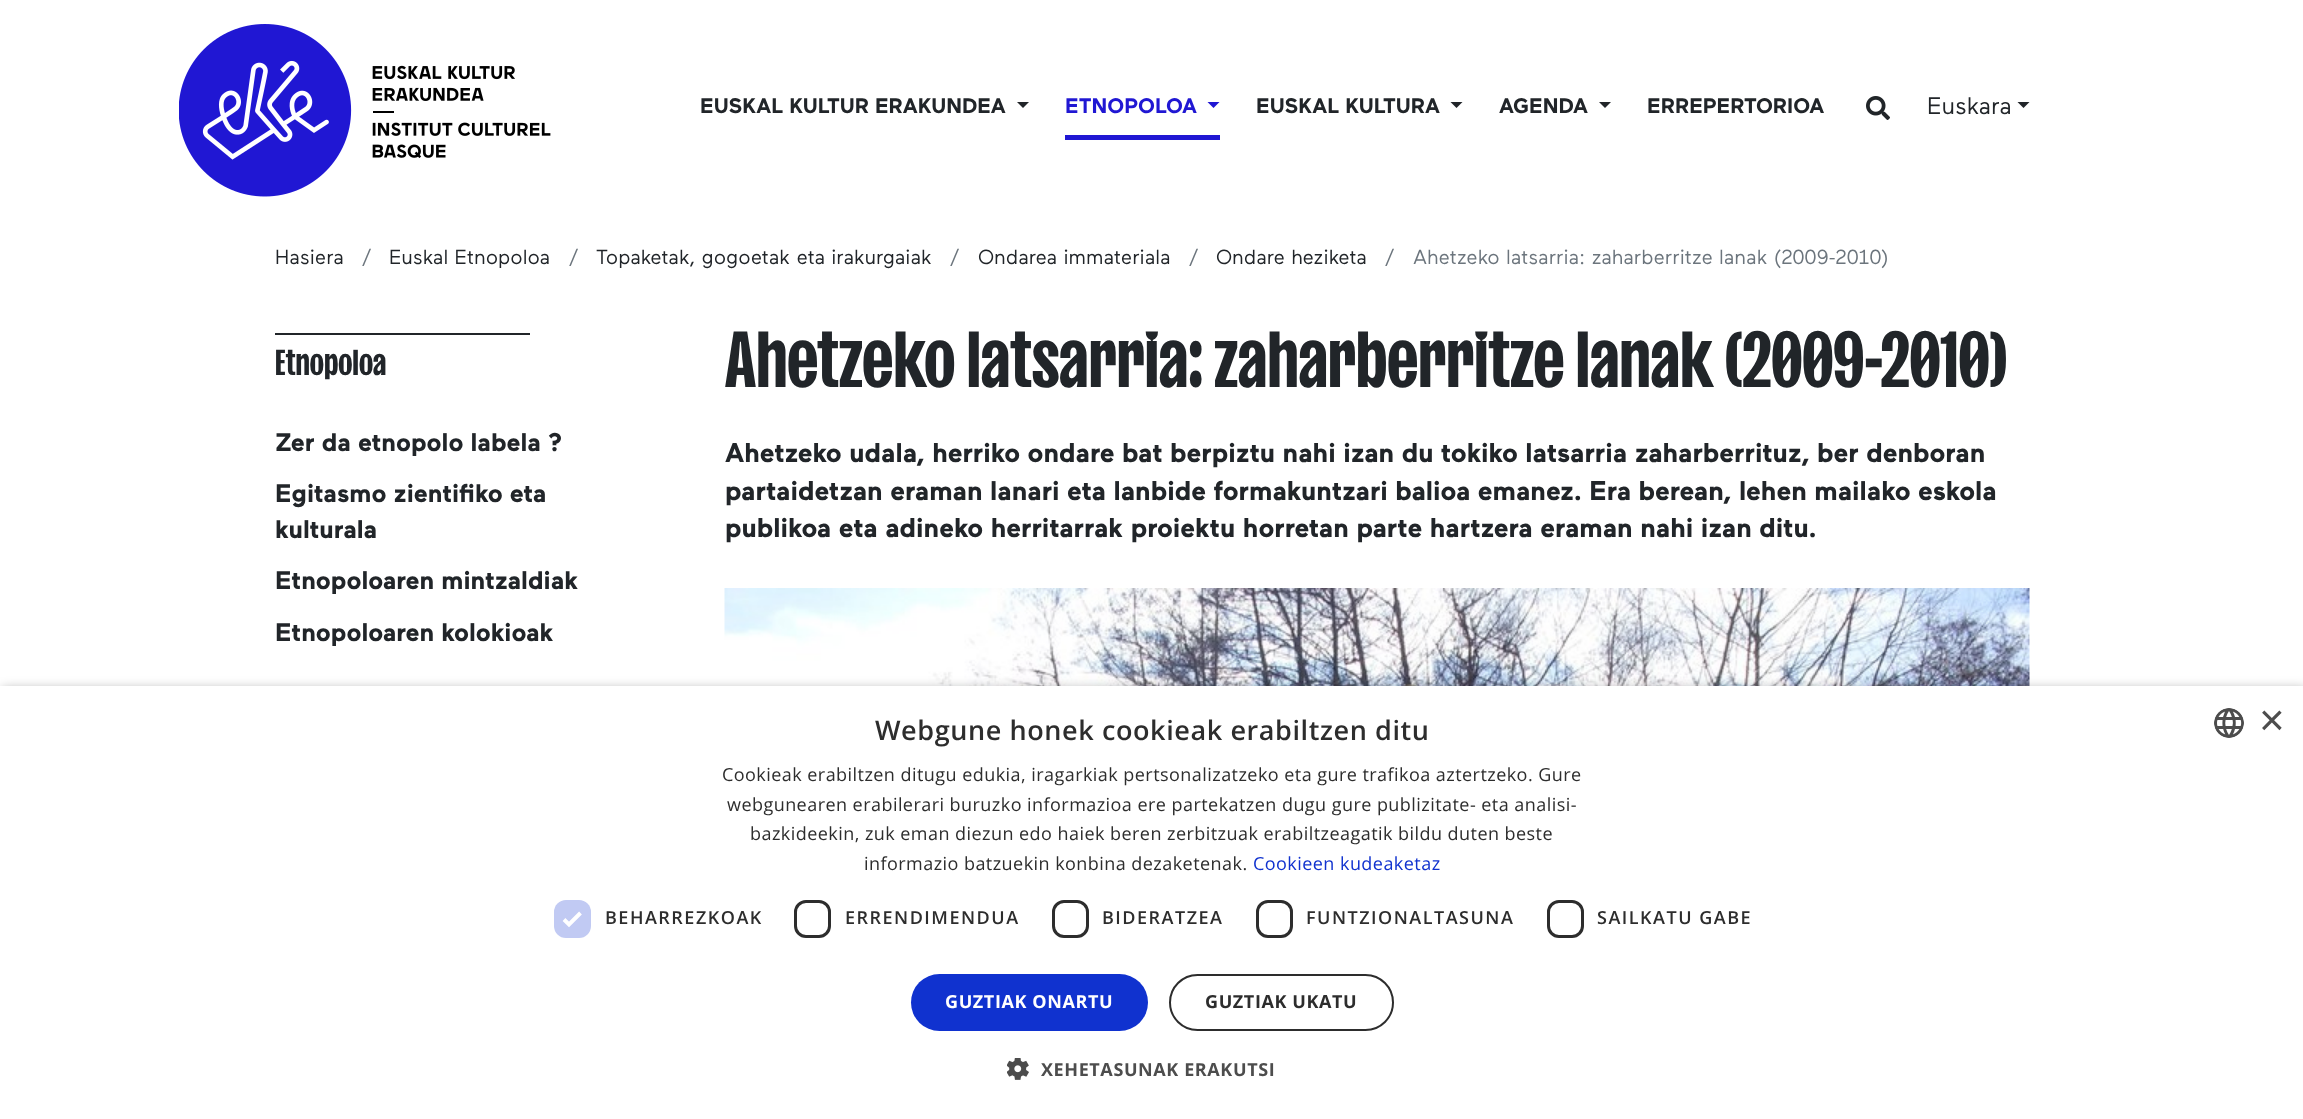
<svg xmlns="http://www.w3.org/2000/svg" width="2303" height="1119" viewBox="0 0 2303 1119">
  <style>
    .t1 { font: bold 21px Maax; fill: #212529; }
    .t2 { font: bold 21px Maax; fill: #2017d3; }
    .t3 { font: 24px Maax; fill: #212529; }
    .t4 { font: 20.4px Maax; fill: #212529; }
    .t5 { font: 20.4px Maax; fill: #6c757d; }
    .t6 { font: 600 36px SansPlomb; fill: #212529; }
    .t7 { font: bold 25.5px Maax; fill: #212529; }
    .t8 { font: 600 79.25px SansPlomb; fill: #212529; }
    .t9 { font: bold 27px Maax; fill: #212529; }
    .t10 { font: 600 27px Open Sans; letter-spacing: 0.6px; fill: #2d2d2d; }
    .t11 { font: 44px Liberation Sans; fill: #4d4d4d; }
    .t12 { font: 18px Open Sans; letter-spacing: 0.45px; fill: #2d2d2d; }
    .t13 { font: 18px Open Sans; letter-spacing: 0.45px; fill: #1032cf; }
    .t14 { font: 600 18px Open Sans; letter-spacing: 1.5px; fill: #2d2d2d; }
    .t15 { font: bold 18px Open Sans; letter-spacing: 0.6px; fill: #fff; }
    .t16 { font: bold 18px Open Sans; letter-spacing: 0.6px; fill: #2d2d2d; }
    .t17 { font: bold 18px Open Sans; letter-spacing: 0.6px; fill: #4d4d4d; }
  </style>
  <rect width="100%" height="100%" fill="#fff"/>
  <image x="179" y="24" width="372" height="173" href="images/1.png"/>
  <text x="700" y="113" class="t1">EUSKAL KULTUR ERAKUNDEA</text>
  <path d="M1017 102H1029L1023 108Z" fill="#212529"/>
  <rect x="1065" y="135" width="155" height="5" fill="#2017d3"/>
  <text x="1065" y="113" class="t2">ETNOPOLOA</text>
  <path d="M1207.5 102H1219.5L1213.5 108Z" fill="#2017d3"/>
  <text x="1256" y="113" class="t1">EUSKAL KULTURA</text>
  <path d="M1450.5 102H1462.5L1456.5 108Z" fill="#212529"/>
  <text x="1499" y="113" class="t1">AGENDA</text>
  <path d="M1599 102H1611L1605 108Z" fill="#212529"/>
  <text x="1647" y="113" class="t1">ERREPERTORIOA</text>
  <image x="1866" y="96" width="24" height="24" href="images/2.png"/>
  <text x="1927" y="114" class="t3">Euskara</text>
  <path d="M2017.5 102H2029.5L2023.5 108Z" fill="#212529"/>
  <text x="275" y="264" class="t4">Hasiera</text>
  <text x="362" y="264" class="t5">/</text>
  <text x="389" y="264" class="t4">Euskal Etnopoloa</text>
  <text x="569" y="264" class="t5">/</text>
  <text x="596" y="264" class="t4">Topaketak, gogoetak eta irakurgaiak</text>
  <text x="950" y="264" class="t5">/</text>
  <text x="978" y="264" class="t4">Ondarea immateriala</text>
  <text x="1189" y="264" class="t5">/</text>
  <text x="1216" y="264" class="t4">Ondare heziketa</text>
  <text x="1385" y="264" class="t5">/</text>
  <text x="1413" y="264" class="t5">Ahetzeko latsarria: zaharberritze lanak (2009-2010)</text>
  <rect x="275" y="333" width="255" height="2" fill="#212529"/>
  <text x="275" y="375" class="t6">Etnopoloa</text>
  <text x="275" y="451" class="t7">Zer da etnopolo labela ?</text>
  <text x="275" y="502" class="t7">Egitasmo zientifiko eta</text>
  <text x="275" y="538" class="t7">kulturala</text>
  <text x="275" y="589" class="t7">Etnopoloaren mintzaldiak</text>
  <text x="275" y="641" class="t7">Etnopoloaren kolokioak</text>
  <text x="725" y="387" class="t8">Ahetzeko latsarria: zaharberritze lanak (2009-2010)</text>
  <text x="725" y="462" class="t9">Ahetzeko udala, herriko ondare bat berpiztu nahi izan du tokiko latsarria zaharberrituz, ber denboran</text>
  <text x="725" y="500" class="t9">partaidetzan eraman lanari eta lanbide formakuntzari balioa emanez. Era berean, lehen mailako eskola</text>
  <text x="725" y="537" class="t9">publikoa eta adineko herritarrak proiektu horretan parte hartzera eraman nahi izan ditu.</text>
  <image x="724" y="588" width="1306" height="98" href="images/3.png"/>
  <rect x="2" y="689" width="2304" height="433" fill="#00000059" filter="blur(6px)"/>
  <rect x="0" y="686" width="2303" height="433" fill="#fff"/>
  <text x="875" y="740" class="t10">Webgune honek cookieak erabiltzen ditu</text>
  <image x="2214" y="708" width="30" height="30" href="images/4.png"/>
  <text x="2259" y="735" class="t11">×</text>
  <text x="722" y="781" class="t12">Cookieak erabiltzen ditugu edukia, iragarkiak pertsonalizatzeko eta gure trafikoa aztertzeko. Gure</text>
  <text x="727" y="811" class="t12">webgunearen erabilerari buruzko informazioa ere partekatzen dugu gure publizitate- eta analisi-</text>
  <text x="750" y="840" class="t12">bazkideekin, zuk eman diezun edo haiek beren zerbitzuak erabiltzeagatik bildu duten beste</text>
  <text x="864" y="870" class="t12">informazio batzuekin konbina dezaketenak.</text>
  <text x="1253" y="870" class="t13">Cookieen kudeaketaz</text>
  <rect x="554" y="900" width="37" height="38" rx="12" fill="#c1caf3"/>
  <path d="M564 919.5L569 924.5L580.5 913" fill="none" stroke="#fff" stroke-width="3.9"/>
  <text x="605" y="924" class="t14">BEHARREZKOAK</text>
  <rect x="795.5" y="901.5" width="34" height="35" rx="10.5" fill="none" stroke="#2d2d2d" stroke-width="3"/>
  <text x="845" y="924" class="t14">ERRENDIMENDUA</text>
  <rect x="1053.5" y="901.5" width="34" height="35" rx="10.5" fill="none" stroke="#2d2d2d" stroke-width="3"/>
  <text x="1102" y="924" class="t14">BIDERATZEA</text>
  <rect x="1257.5" y="901.5" width="34" height="35" rx="10.5" fill="none" stroke="#2d2d2d" stroke-width="3"/>
  <text x="1306" y="924" class="t14">FUNTZIONALTASUNA</text>
  <rect x="1548.5" y="901.5" width="34" height="35" rx="10.5" fill="none" stroke="#2d2d2d" stroke-width="3"/>
  <text x="1597" y="924" class="t14">SAILKATU GABE</text>
  <rect x="911" y="974" width="237" height="57" rx="28.5" fill="#1032cf"/>
  <text x="945" y="1008" class="t15">GUZTIAK ONARTU</text>
  <rect x="1170" y="975" width="223" height="55" rx="27.5" fill="none" stroke="#2d2d2d" stroke-width="2"/>
  <text x="1205" y="1008" class="t16">GUZTIAK UKATU</text>
  <image x="1007" y="1058" width="22" height="22" href="images/5.png"/>
  <text x="1041" y="1076" class="t17">XEHETASUNAK ERAKUTSI</text>
</svg>
